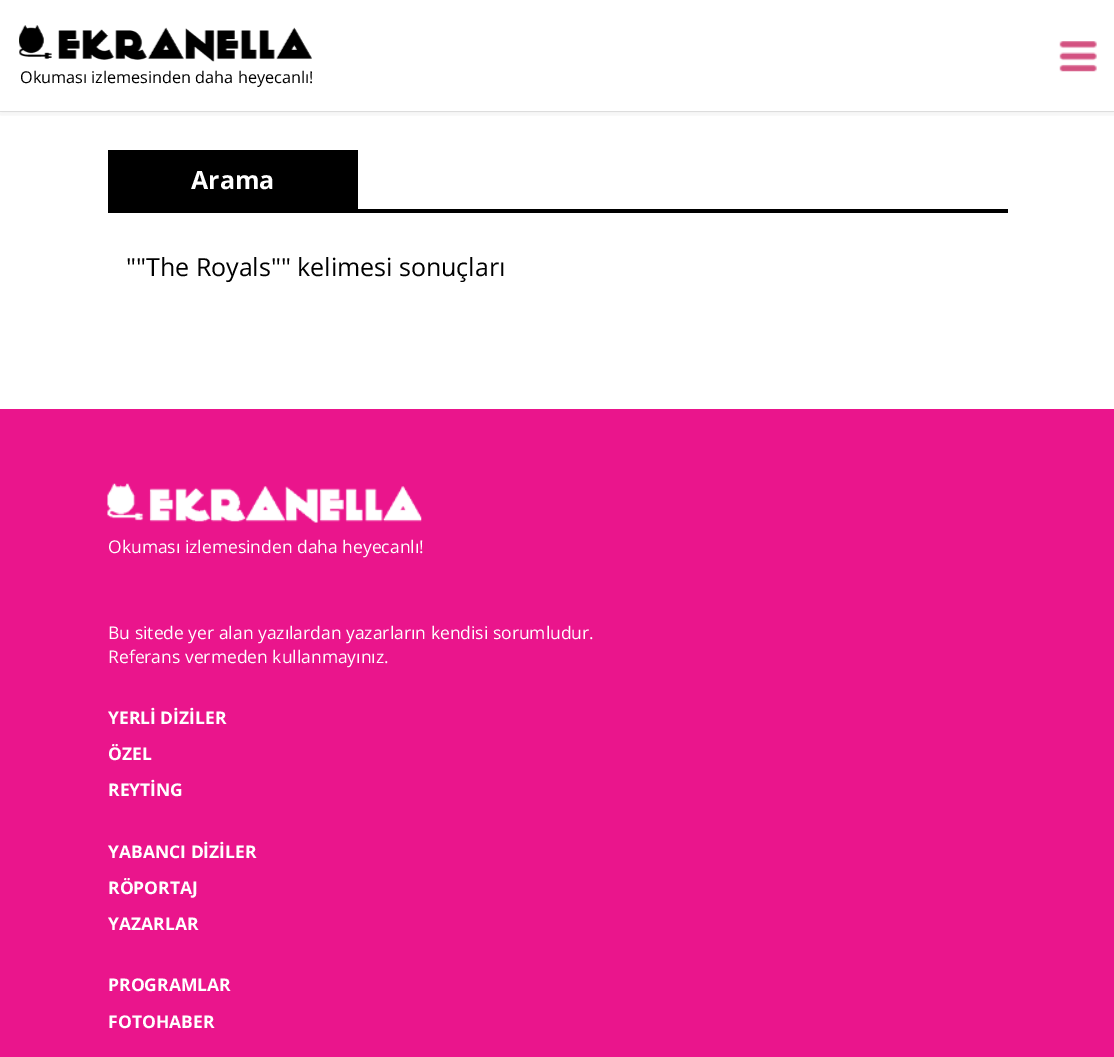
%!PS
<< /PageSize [1114 1057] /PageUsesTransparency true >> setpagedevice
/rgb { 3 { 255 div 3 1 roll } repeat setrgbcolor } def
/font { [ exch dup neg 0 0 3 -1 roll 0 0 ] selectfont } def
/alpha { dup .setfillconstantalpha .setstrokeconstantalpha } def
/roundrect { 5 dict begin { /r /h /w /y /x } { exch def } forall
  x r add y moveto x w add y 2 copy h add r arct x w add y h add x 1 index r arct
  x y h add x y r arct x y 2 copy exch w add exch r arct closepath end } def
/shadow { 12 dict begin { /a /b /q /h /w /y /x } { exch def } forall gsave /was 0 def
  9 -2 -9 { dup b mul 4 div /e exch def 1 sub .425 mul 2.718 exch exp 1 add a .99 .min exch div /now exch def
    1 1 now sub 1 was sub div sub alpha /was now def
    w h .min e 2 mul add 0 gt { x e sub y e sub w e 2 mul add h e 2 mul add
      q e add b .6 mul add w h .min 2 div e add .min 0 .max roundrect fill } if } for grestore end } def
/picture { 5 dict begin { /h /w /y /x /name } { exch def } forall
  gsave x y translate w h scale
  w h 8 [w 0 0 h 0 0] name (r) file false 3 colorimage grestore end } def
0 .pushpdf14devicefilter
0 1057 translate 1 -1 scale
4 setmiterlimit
255 255 255 rgb
0 0 1114 1057 rectfill
233 233 233 rgb
0 111 1114 1 rectfill
gsave
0 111 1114 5 rectclip
0 0 0 rgb
0 0 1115 111 0 6 0.1 shadow
grestore
(img/1.rgb) 19 25 293 37 picture
(img/2.rgb) 1059 41 38 31 picture
[
  [108 209 900 4 0 0 0]
  [108 150 250 59 0 0 0]
  [0 409 1114 648 234 21 140]
] { aload pop rgb rectfill } forall
(img/3.rgb) 107 483 315 40 picture
/OpenSans-Regular 16.25 font
0 0 0 rgb
20 83 moveto (Okuması izlemesinden daha heyecanlı!) show
/OpenSans-Bold 25 font
255 255 255 rgb
191 189 moveto (Arama) show
/OpenSans-Regular 25 font
0 0 0 rgb
126 276 moveto (""The Royals"" kelimesi sonuçları) show
/OpenSans-Regular 17.5 font
255 255 255 rgb
[
  [(Okuması izlemesinden daha heyecanlı!) 108 553]
  [(Bu sitede yer alan yazılardan yazarların kendisi sorumludur.) 108 639]
  [(Referans vermeden kullanmayınız.) 108 663]
] { aload pop moveto show } forall
/OpenSans-Bold 17.5 font
[
  [(YERLİ DİZİLER) 108 724]
  [(ÖZEL) 108 760]
  [(REYTİNG) 108 796]
  [(YABANCI DİZİLER) 108 858]
  [(RÖPORTAJ) 108 894]
  [(YAZARLAR) 108 930]
  [(PROGRAMLAR) 108 991]
  [(FOTOHABER) 108 1028]
] { aload pop moveto show } forall
.poppdf14devicefilter showpage
